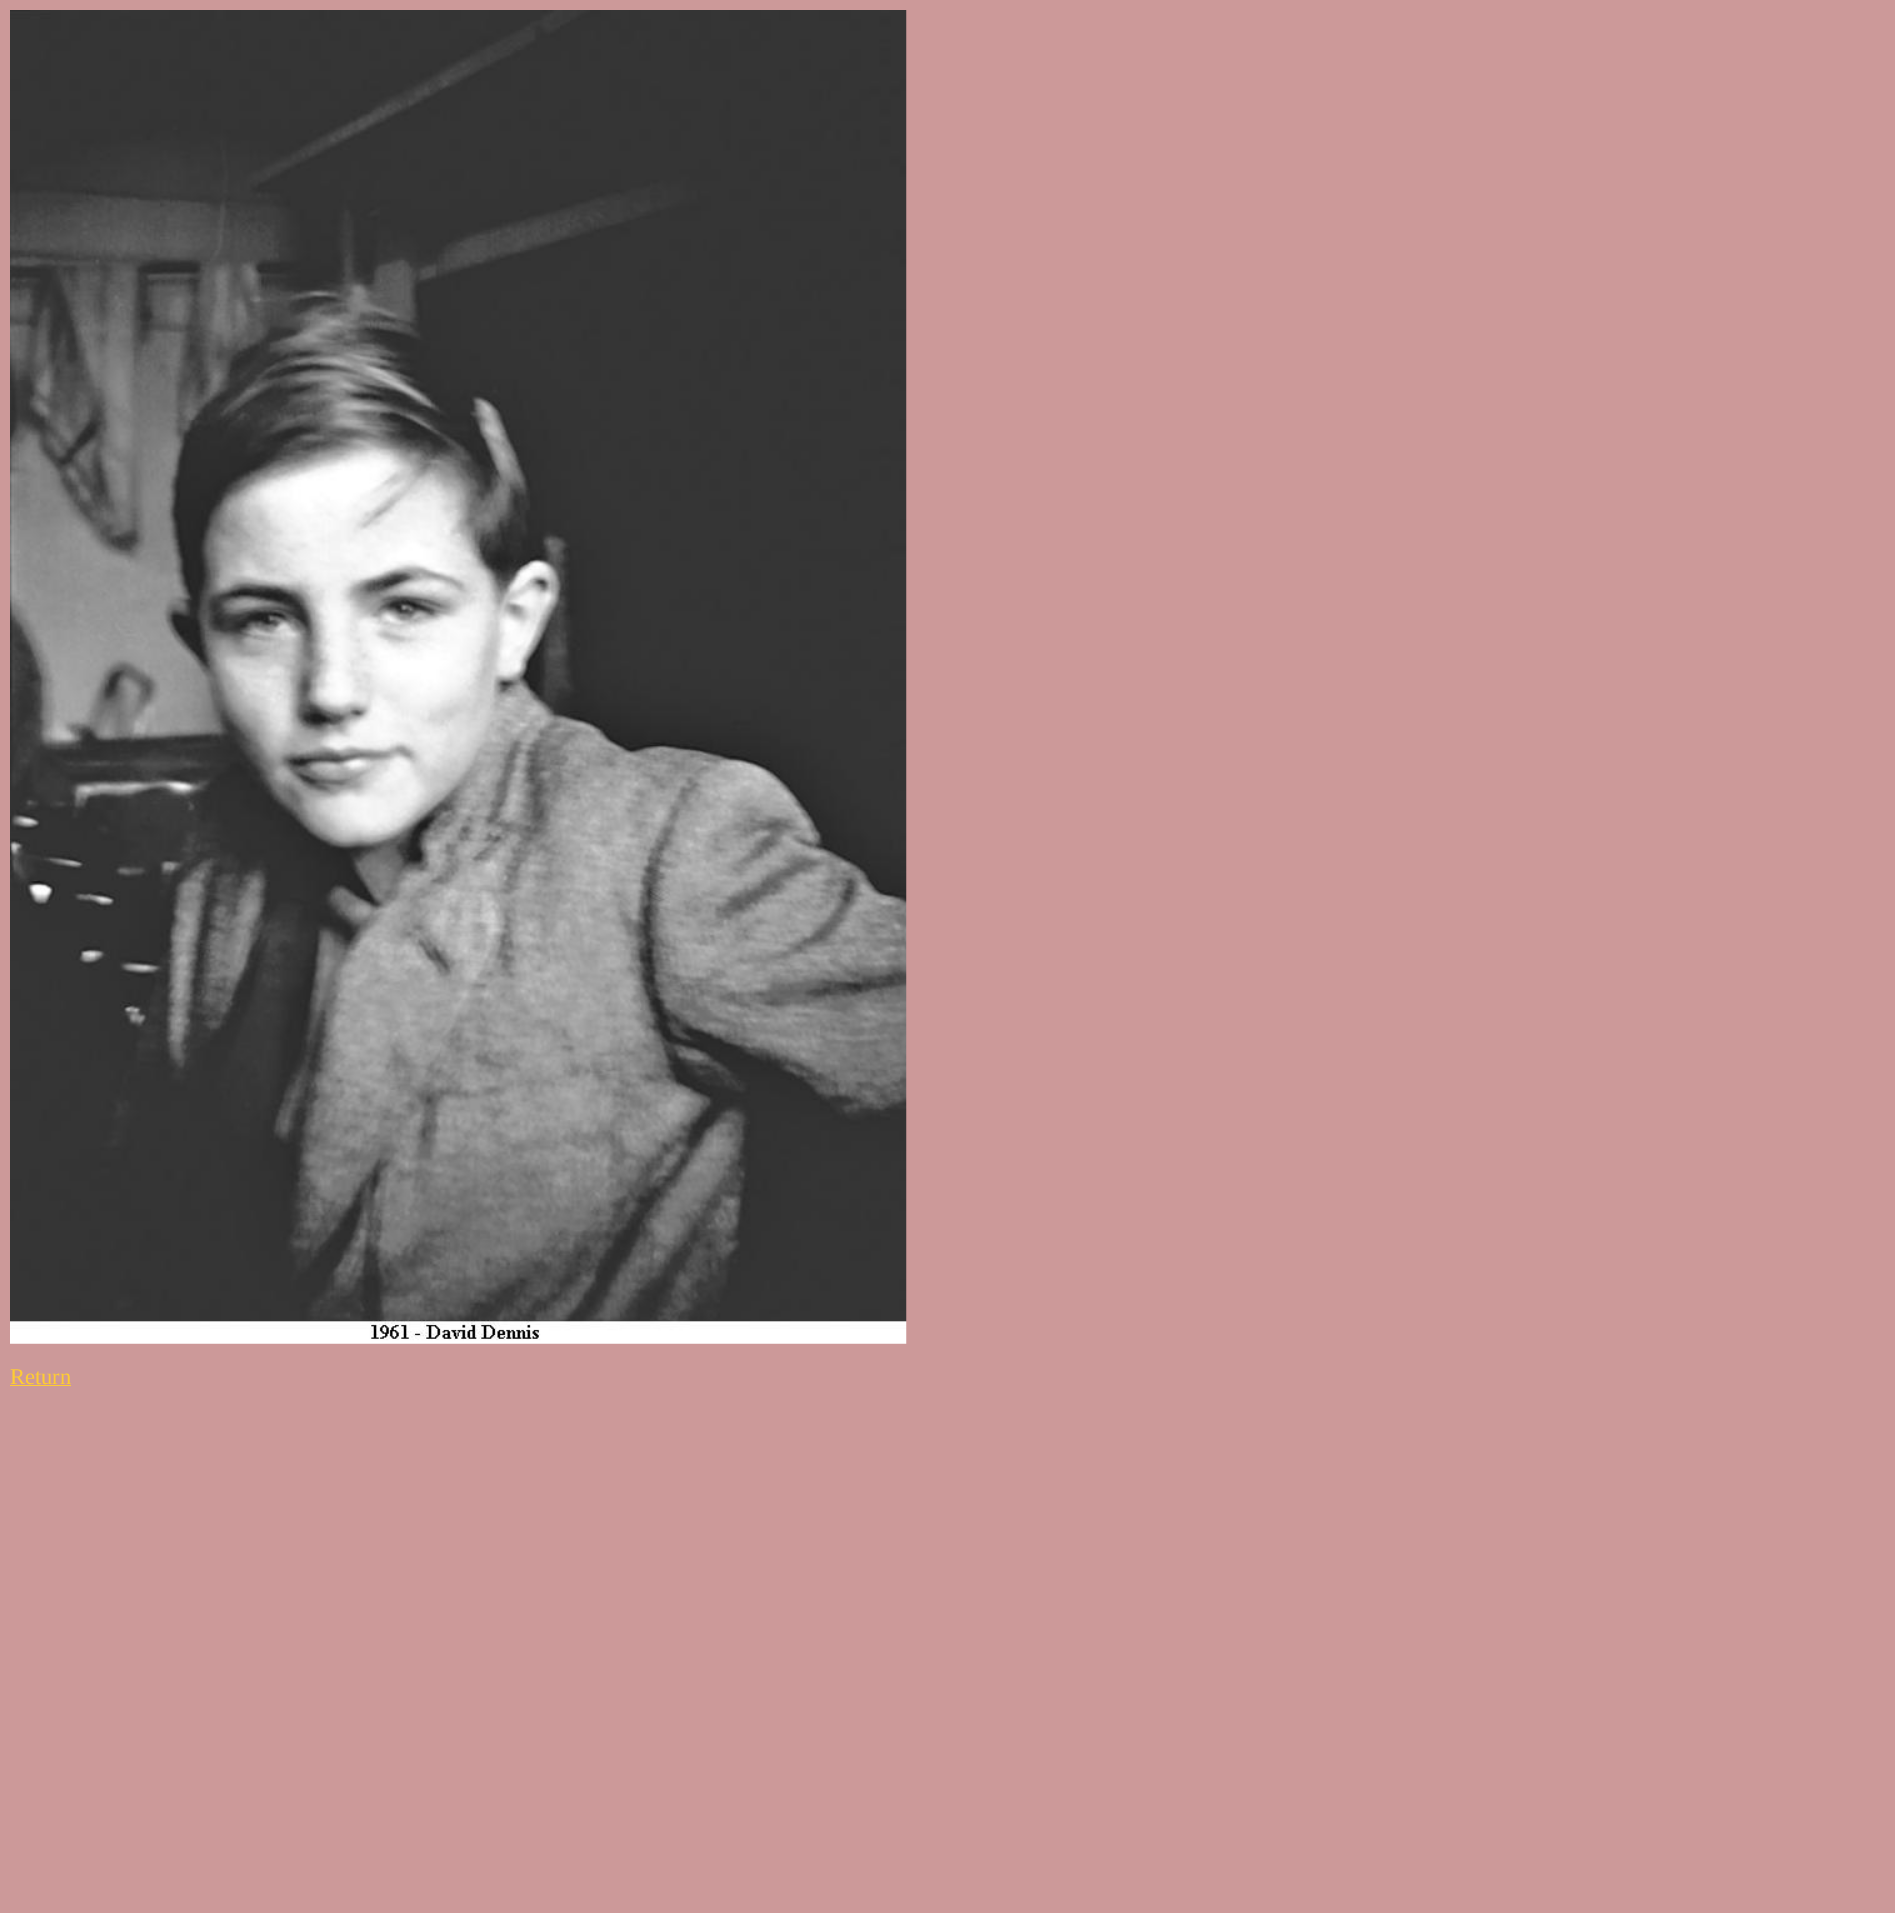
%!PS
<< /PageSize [1895 1913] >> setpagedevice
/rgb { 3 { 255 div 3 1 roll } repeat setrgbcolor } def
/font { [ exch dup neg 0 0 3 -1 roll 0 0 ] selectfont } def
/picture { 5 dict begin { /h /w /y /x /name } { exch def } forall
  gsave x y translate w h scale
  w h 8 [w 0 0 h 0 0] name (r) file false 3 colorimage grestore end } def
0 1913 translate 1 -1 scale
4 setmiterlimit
204 153 153 rgb
0 0 1895 1913 rectfill
(img/1.rgb) 10 10 897 1334 picture
255 204 51 rgb
10 1385 61 1 rectfill
/LiberationSerif-Regular 22.5 font
10 1384 moveto (Return) show
showpage
